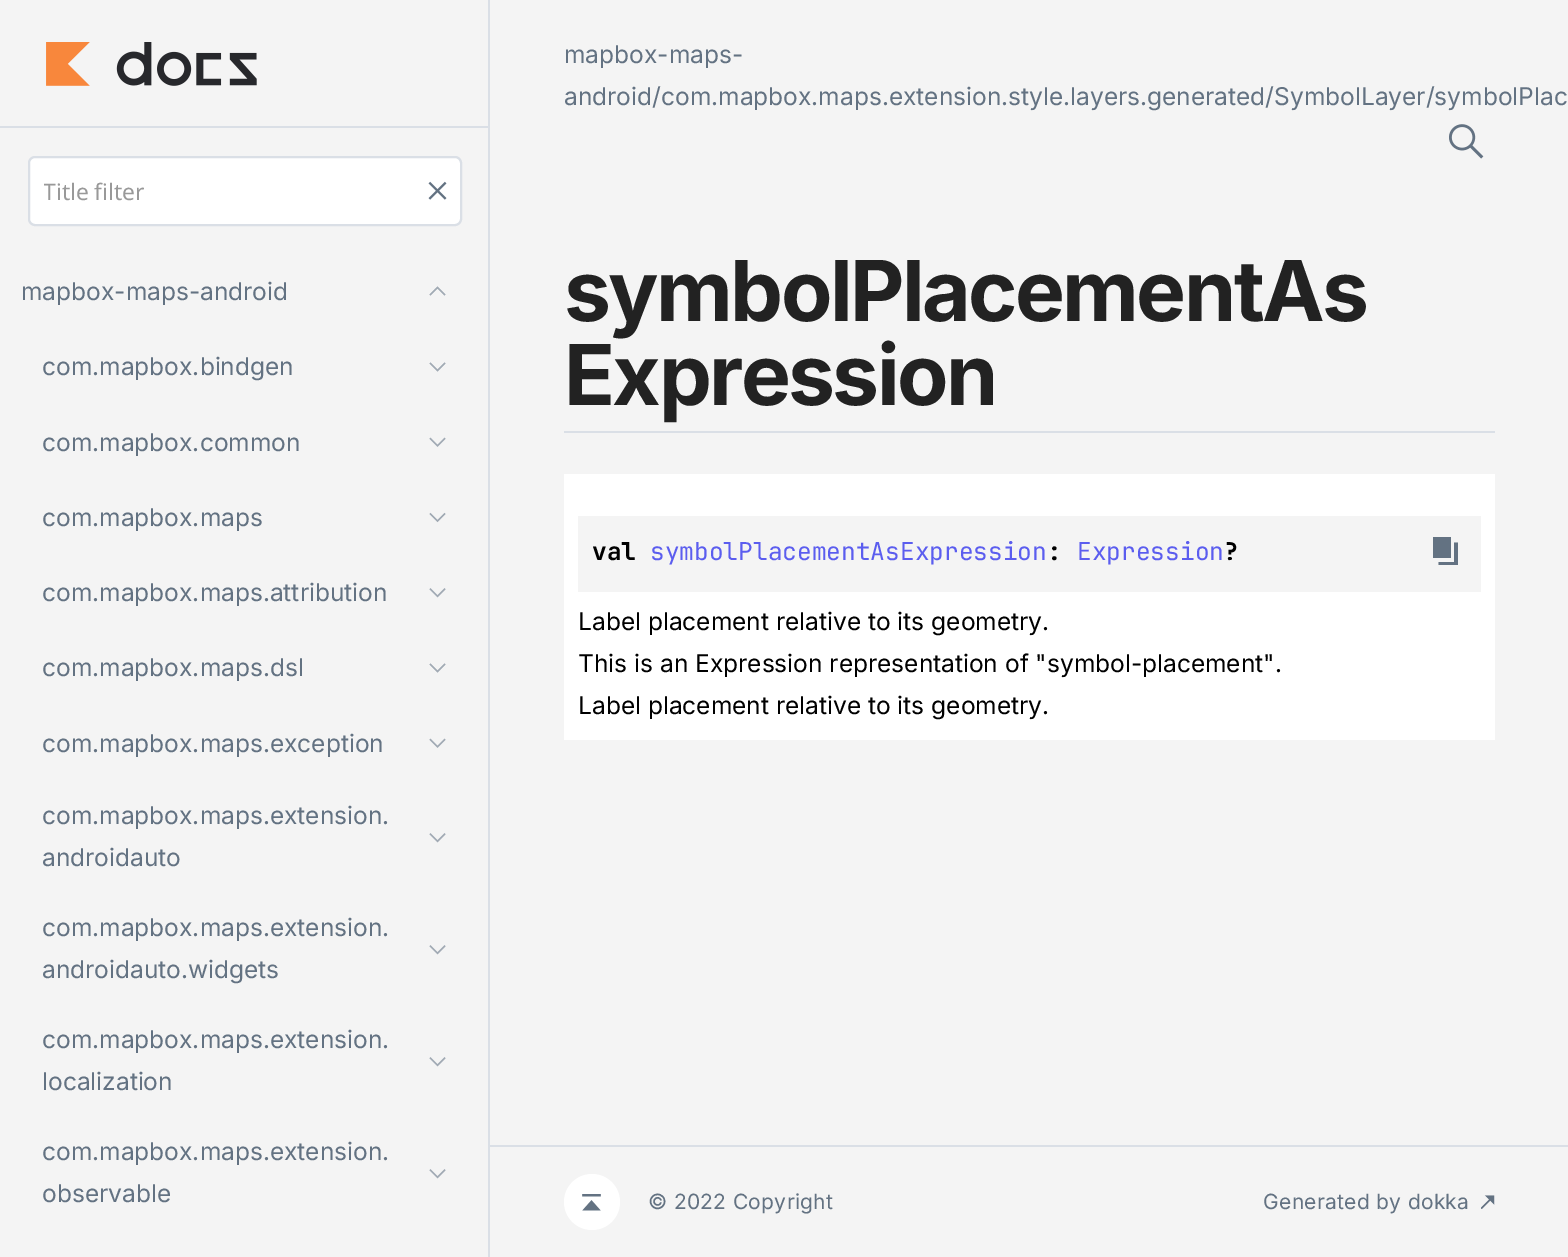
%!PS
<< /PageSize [1568 1257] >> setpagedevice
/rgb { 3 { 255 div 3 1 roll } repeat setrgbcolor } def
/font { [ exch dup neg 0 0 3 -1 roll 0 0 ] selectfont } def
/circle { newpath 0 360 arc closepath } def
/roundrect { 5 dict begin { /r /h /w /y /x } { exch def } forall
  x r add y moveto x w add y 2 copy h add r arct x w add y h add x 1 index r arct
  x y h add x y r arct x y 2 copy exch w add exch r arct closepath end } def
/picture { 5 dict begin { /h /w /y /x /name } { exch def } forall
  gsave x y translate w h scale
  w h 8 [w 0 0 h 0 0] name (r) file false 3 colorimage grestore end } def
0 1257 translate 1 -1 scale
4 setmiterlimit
244 244 244 rgb
0 0 1568 1257 rectfill
218 223 230 rgb
488 0 2 1257 rectfill
(img/1.rgb) 46 42 211 44 picture
0 126 488 2 rectfill
255 255 255 rgb
29 157 432 68 6 roundrect gsave fill grestore
218 223 230 rgb
2 setlinewidth
stroke
(img/2.rgb) 428 181 19 19 picture
(img/3.rgb) 429 286 17 10 picture
(img/4.rgb) 429 362 17 10 picture
(img/5.rgb) 429 437 17 10 picture
(img/6.rgb) 429 512 17 11 picture
(img/7.rgb) 429 588 17 10 picture
(img/4.rgb) 429 663 17 10 picture
(img/5.rgb) 429 738 17 10 picture
(img/7.rgb) 429 833 17 10 picture
(img/7.rgb) 429 945 17 10 picture
(img/7.rgb) 429 1057 17 10 picture
(img/7.rgb) 429 1169 17 10 picture
(img/8.rgb) 1449 124 35 35 picture
[
  [564 431 931 2 218 223 230]
  [564 474 931 266 255 255 255]
  [578 516 903 76 244 244 244]
] { aload pop rgb rectfill } forall
99 114 130 rgb
1433 537 moveto 1451 537 lineto 1451 558 lineto 1433 558 lineto closepath 1454 542.5 moveto 1458 542.5 lineto 1458 565 lineto 1438.5 565 lineto 1438.5 562 lineto 1454 562 lineto closepath eofill
218 223 230 rgb
490 1145 1078 2 rectfill
255 255 255 rgb
592 1202 28 circle fill
(img/9.rgb) 582 1194 19 17 picture
(img/10.rgb) 1481 1195 14 14 picture
gsave
44 175 381 32 rectclip
/NotoSans-Regular 22.75 font
153 153 153 rgb
43 200 moveto (Title filter) show
grestore
/Inter-Regular 24.5 font
99 114 130 rgb
[
  [(mapbox-maps-android) 21 300]
  [(com.mapbox.bindgen) 42 375]
  [(com.mapbox.common) 42 451]
  [(com.mapbox.maps) 42 526]
  [(com.mapbox.maps.attribution) 42 601]
  [(com.mapbox.maps.dsl) 42 676]
  [(com.mapbox.maps.exception) 42 752]
  [(com.mapbox.maps.extension.) 42 824]
  [(androidauto) 42 866]
  [(com.mapbox.maps.extension.) 42 936]
  [(androidauto.widgets) 42 978]
  [(com.mapbox.maps.extension.) 42 1048]
  [(localization) 42 1090]
  [(com.mapbox.maps.extension.) 42 1160]
  [(observable) 42 1202]
  [(mapbox-maps-) 564 63]
  [(android/com.mapbox.maps.extension.style.layers.generated/SymbolLayer/symbolPlac) 564 105]
] { aload pop moveto show } forall
/Inter-Bold 84 font
34 34 34 rgb
564 321 moveto -2.6 0 (symbolPlacementAs) ashow
564 405 moveto -2.6 0 (Expression) ashow
/JetBrainsMono-Bold 24.5 font
0 0 0 rgb
592 560 moveto (val) show
/JetBrainsMono-Regular 24.5 font
91 93 239 rgb
650 560 moveto (symbolPlacementAsExpression) show
/JetBrainsMono-Bold 24.5 font
0 0 0 rgb
1047 560 moveto (:) show
/JetBrainsMono-Regular 24.5 font
91 93 239 rgb
1077 560 moveto (Expression) show
/JetBrainsMono-Bold 24.5 font
0 0 0 rgb
1224 560 moveto (?) show
/Inter-Regular 24.5 font
[
  [(Label placement relative to its geometry.) 578 630]
  [(This is an Expression representation of "symbol-placement".) 578 672]
  [(Label placement relative to its geometry.) 578 714]
] { aload pop moveto show } forall
/Inter-Regular 21 font
99 114 130 rgb
648 1209 moveto 0.3 0 (© 2022 Copyright) ashow
1263 1209 moveto 0.3 0 (Generated by dokka) ashow
showpage
